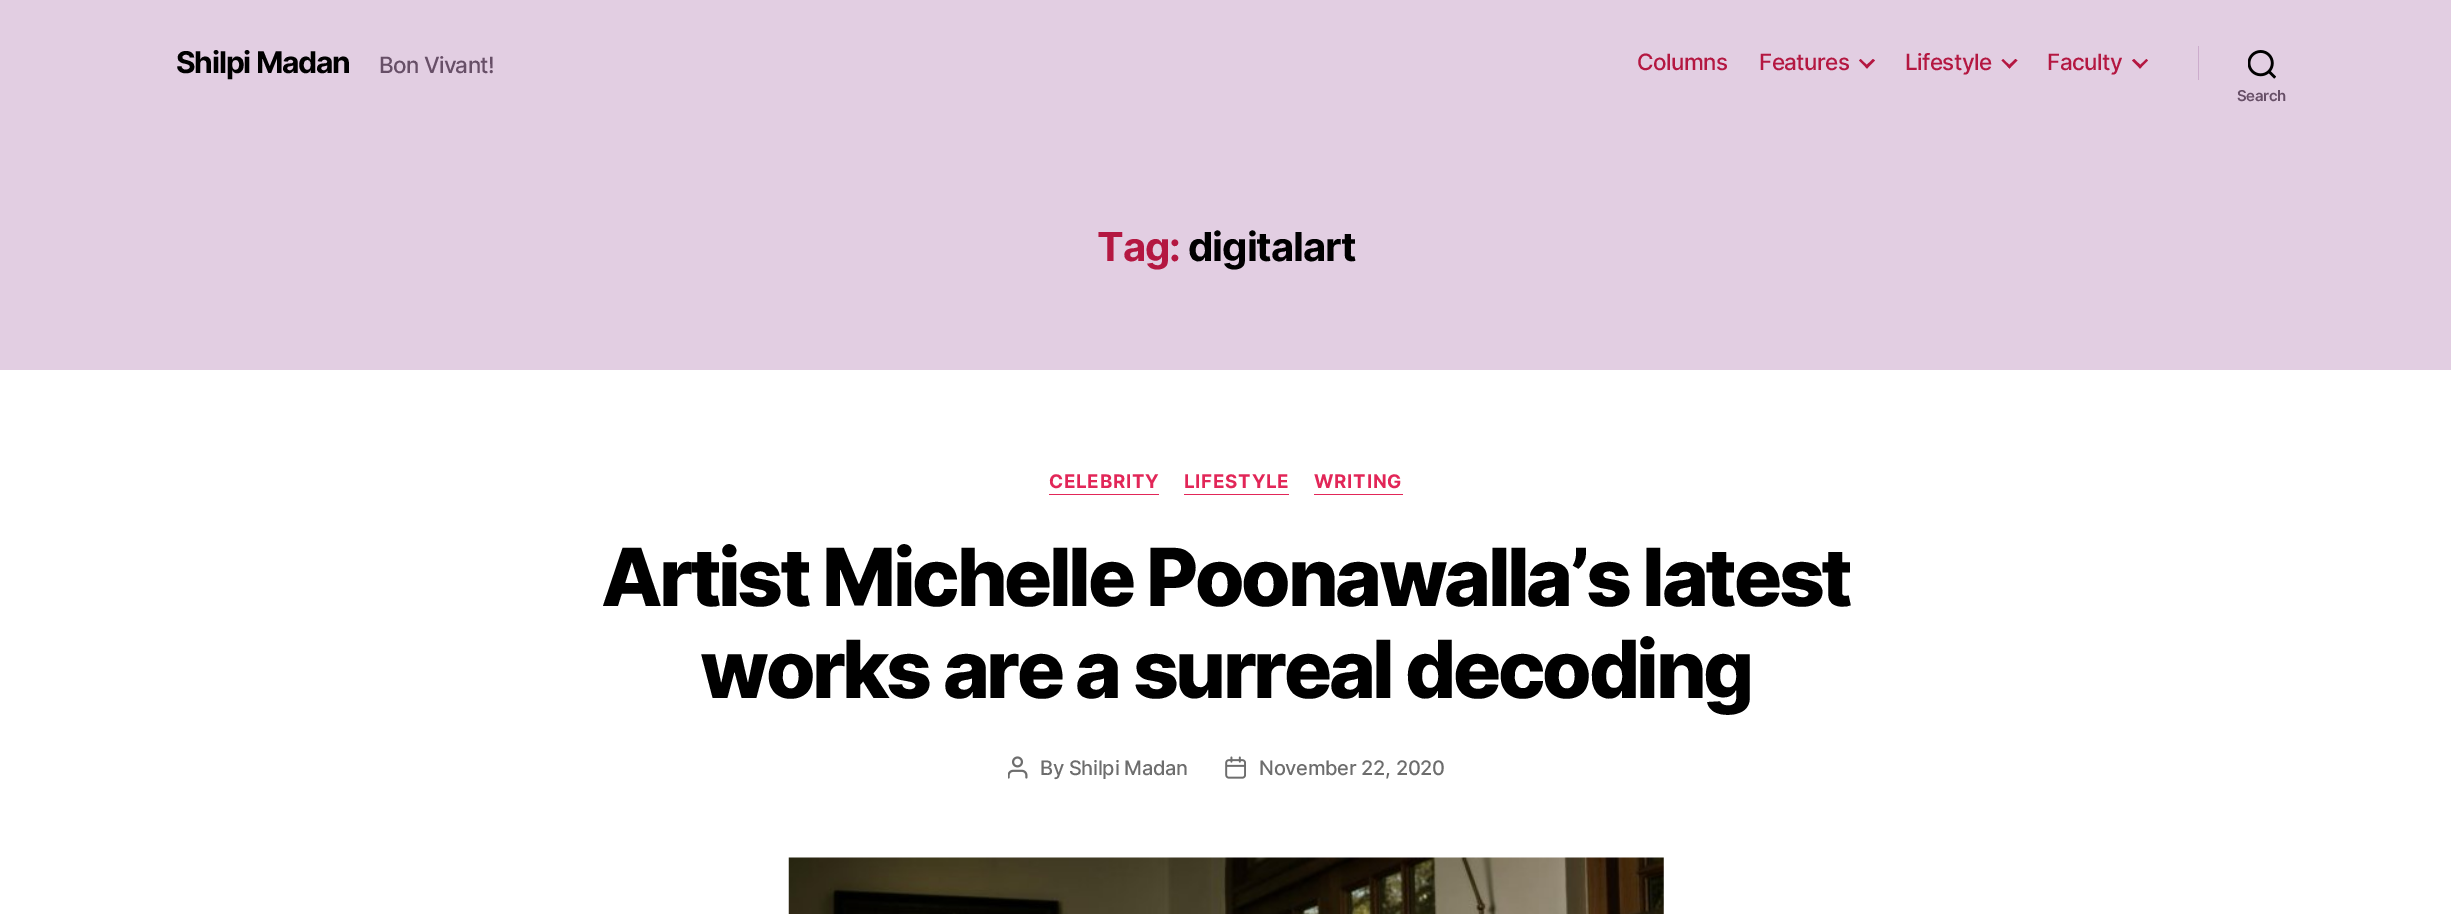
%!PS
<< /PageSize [2451 914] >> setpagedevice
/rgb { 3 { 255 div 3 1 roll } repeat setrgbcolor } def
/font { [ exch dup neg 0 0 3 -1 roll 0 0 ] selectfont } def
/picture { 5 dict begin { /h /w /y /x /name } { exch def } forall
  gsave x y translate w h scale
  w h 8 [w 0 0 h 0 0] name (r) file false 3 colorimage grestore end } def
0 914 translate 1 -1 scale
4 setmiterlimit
255 255 255 rgb
0 0 2451 914 rectfill
226 206 226 rgb
0 0 2451 370 rectfill
180 23 65 rgb
1859 60.5 moveto 1860.5 59 lineto 1868.5 66.5 lineto 1867 68.5 lineto closepath fill
1865 66.5 moveto 1873 59 lineto 1875 60.5 lineto 1867 68.5 lineto closepath fill
2001.5 60.5 moveto 2003 59 lineto 2011 66.5 lineto 2009.5 68.5 lineto closepath fill
2007.5 66.5 moveto 2015.5 59 lineto 2017.5 60.5 lineto 2009.5 68.5 lineto closepath fill
2132 60.5 moveto 2134 59 lineto 2142 66.5 lineto 2140 68.5 lineto closepath fill
2138.5 66.5 moveto 2146.5 59 lineto 2148 60.5 lineto 2140 68.5 lineto closepath fill
204 172 204 rgb
2198 46 1 34 rectfill
(img/1.rgb) 2248 50 28 29 picture
[
  [1049 494 110 1 226 38 88]
  [1184 494 105 1 226 38 88]
  [1314 494 89 1 226 38 88]
] { aload pop rgb rectfill } forall
(img/2.rgb) 1008 756 20 23 picture
(img/3.rgb) 1225 756 21 23 picture
(img/4.rgb) 788 857 876 57 picture
/Inter-Bold 30 font
0 0 0 rgb
176 73 moveto -1.25 0 (Shilpi Madan) ashow
/Inter-Medium 22.5 font
103 79 103 rgb
379 73 moveto -0.75 0 (Bon Vivant!) ashow
180 23 65 rgb
1637 70 moveto -0.6 0 (Columns) ashow
1759 70 moveto -0.6 0 (Features) ashow
1905 70 moveto -0.6 0 (Lifestyle) ashow
2047 70 moveto -0.6 0 (Faculty) ashow
/Inter-SemiBold 15 font
103 79 103 rgb
2237 101 moveto -0.3 0 (Search) ashow
/Inter-Bold 40 font
180 23 65 rgb
1097 261 moveto -1 0 (Tag:) ashow
0 0 0 rgb
1188 261 moveto -1 0 (digitalart) ashow
/Inter-Bold 18.75 font
226 38 88 rgb
1049 488 moveto 0.75 0 (CELEBRITY) ashow
1184 488 moveto 0.75 0 (LIFESTYLE) ashow
1314 488 moveto 0.75 0 (WRITING) ashow
/Inter-ExtraBold 80 font
0 0 0 rgb
601 606 moveto -3.35 0 (Artist Michelle Poonawalla’s latest) ashow
700 698 moveto -3.35 0 (works are a surreal decoding) ashow
/Inter-Medium 20 font
109 109 109 rgb
1040 775 moveto -0.3 0 (By Shilpi Madan) ashow
1259 775 moveto -0.3 0 (November 22, 2020) ashow
showpage
